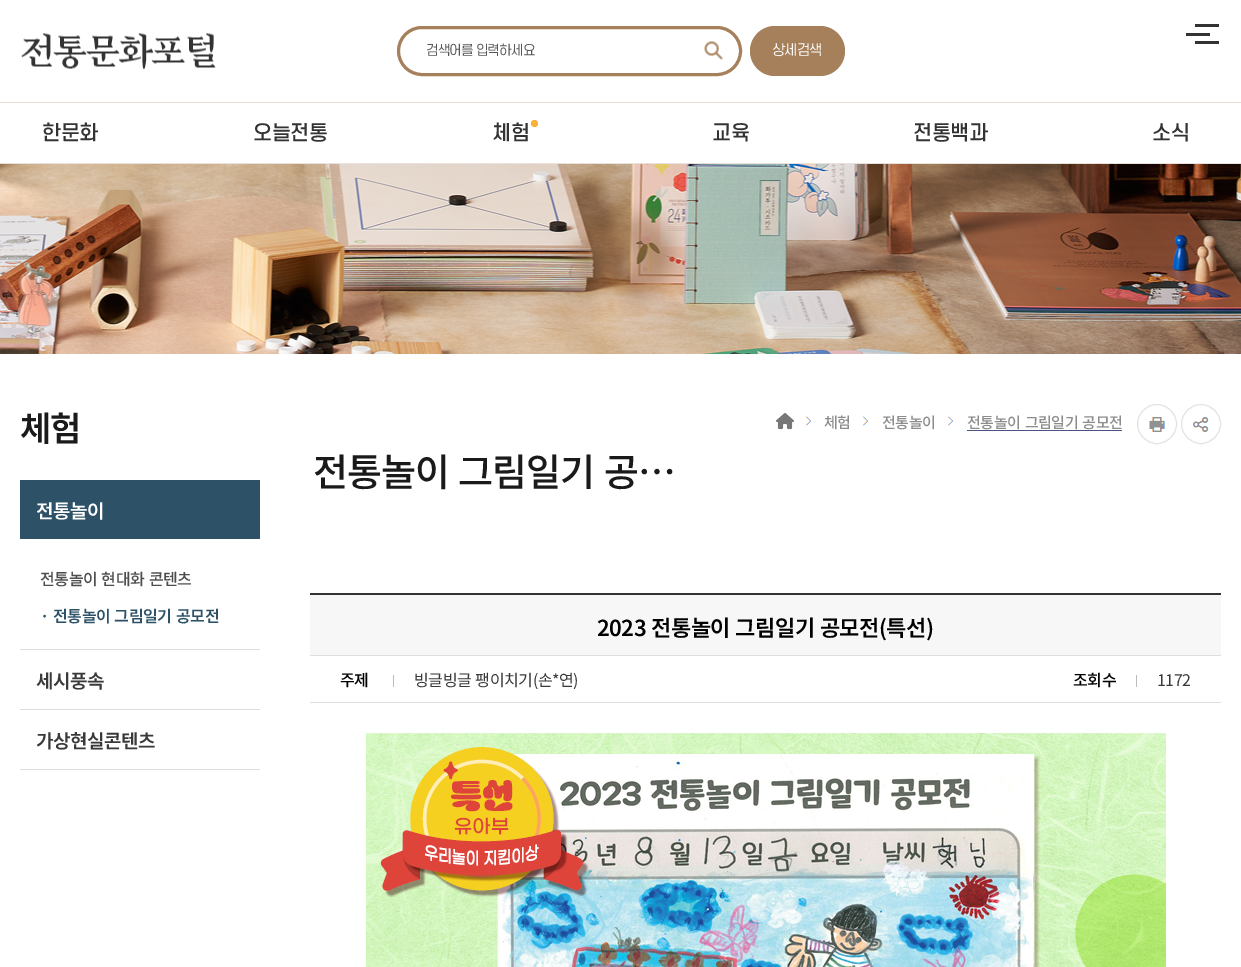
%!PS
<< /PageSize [1241 967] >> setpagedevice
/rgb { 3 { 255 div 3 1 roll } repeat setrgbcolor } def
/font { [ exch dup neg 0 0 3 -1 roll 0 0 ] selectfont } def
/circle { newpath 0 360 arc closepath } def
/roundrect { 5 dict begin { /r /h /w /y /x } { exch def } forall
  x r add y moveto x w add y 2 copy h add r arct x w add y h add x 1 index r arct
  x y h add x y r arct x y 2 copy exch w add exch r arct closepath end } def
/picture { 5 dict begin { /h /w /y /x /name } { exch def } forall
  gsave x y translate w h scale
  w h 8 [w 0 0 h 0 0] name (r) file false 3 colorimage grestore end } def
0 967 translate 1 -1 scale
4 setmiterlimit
255 255 255 rgb
0 0 1241 967 rectfill
(img/1.rgb) 21 33 195 37 picture
166 128 91 rgb
3 setlinewidth
398.5 27.5 342 47 23.5 roundrect stroke
(img/2.rgb) 704 41 19 19 picture
750 26 95 50 25 roundrect fill
[
  [1195 24 24 3 51 51 51]
  [1186 33 24 3 51 51 51]
  [1195 41 24 3 51 51 51]
  [0 102 1241 1 232 225 220]
  [0 163 1241 1 232 225 220]
] { aload pop rgb rectfill } forall
252 175 57 rgb
534.5 123.5 3.5 circle fill
(img/3.rgb) 0 164 1241 190 picture
[
  [20 769 240 1 221 221 221]
  [20 480 240 59 45 82 103]
  [20 649 240 1 221 221 221]
  [20 709 240 1 221 221 221]
] { aload pop rgb rectfill } forall
(img/4.rgb) 776 413 18 17 picture
(img/5.rgb) 805 416 6 10 picture
(img/5.rgb) 862 416 6 10 picture
(img/5.rgb) 947 416 6 10 picture
74 83 127 rgb
967 430 155 1 rectfill
228 228 228 rgb
1 setlinewidth
1157 424 19.5 circle stroke
(img/6.rgb) 1149 417 16 15 picture
1201 424 19.5 circle stroke
(img/7.rgb) 1193 417 16 15 picture
[
  [310 593 911 2 51 51 51]
  [310 702 911 1 222 222 222]
  [310 595 911 60 247 247 247]
  [310 655 911 1 222 222 222]
  [393 675 1 12 188 188 188]
  [1136 675 1 12 188 188 188]
] { aload pop rgb rectfill } forall
(img/8.rgb) 366 733 800 234 picture
/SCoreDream-Regular 13.25 font
87 87 87 rgb
426 55 moveto -1 0 (검색어를 입력하세요) ashow
/SCoreDream-Regular 14 font
255 255 255 rgb
772 55 moveto -1 0 (상세검색) ashow
/SCoreDream-Medium 20 font
51 51 51 rgb
42 140 moveto -0.5 0 (한문화) ashow
253 140 moveto -0.5 0 (오늘전통) ashow
492 140 moveto -0.5 0 (체험) ashow
712 140 moveto -0.5 0 (교육) ashow
913 140 moveto -0.5 0 (전통백과) ashow
1152 140 moveto -0.5 0 (소식) ashow
/NotoSansKR-SemiBold 34 font
26 26 26 rgb
20 441 moveto -1 0 (체험) ashow
/NotoSansKR-SemiBold 19 font
255 255 255 rgb
36 518 moveto -0.5 0 (전통놀이) ashow
/NotoSansKR-Medium 16 font
78 78 78 rgb
40 585 moveto 1 0 32 -0.4 0 (전통놀이 현대화 콘텐츠) awidthshow
/NotoSansKR-SemiBold 16 font
45 82 103 rgb
40 622 moveto -0.4 0 (·) ashow
53 622 moveto 1 0 32 -0.4 0 (전통놀이 그림일기 공모전) awidthshow
/NotoSansKR-SemiBold 19 font
57 57 57 rgb
36 688 moveto -0.5 0 (세시풍속) ashow
36 748 moveto -0.5 0 (가상현실콘텐츠) ashow
/NotoSansKR-Medium 15 font
140 140 140 rgb
824 428 moveto -0.4 0 (체험) ashow
882 428 moveto -0.4 0 (전통놀이) ashow
967 428 moveto 1 0 32 -0.4 0 (전통놀이 그림일기 공모전) awidthshow
/NotoSansKR-Medium 38 font
26 26 26 rgb
313 486 moveto 2 0 32 -1 0 (전통놀이 그림일기 공…) awidthshow
/NotoSansKR-SemiBold 22 font
0 0 0 rgb
597 636 moveto 1 0 32 -0.55 0 (2023 전통놀이 그림일기 공모전\(특선\)) awidthshow
/NotoSansKR-Medium 16 font
340 686 moveto -0.4 0 (주제) ashow
/NotoSansKR-Regular 16 font
57 57 57 rgb
414 686 moveto 1 0 32 -0.4 0 (빙글빙글 팽이치기\(손*연\)) awidthshow
/NotoSansKR-Medium 16 font
0 0 0 rgb
1073 686 moveto -0.4 0 (조회수) ashow
/NotoSansKR-Regular 16 font
57 57 57 rgb
1157 686 moveto -0.4 0 (1172) ashow
showpage
